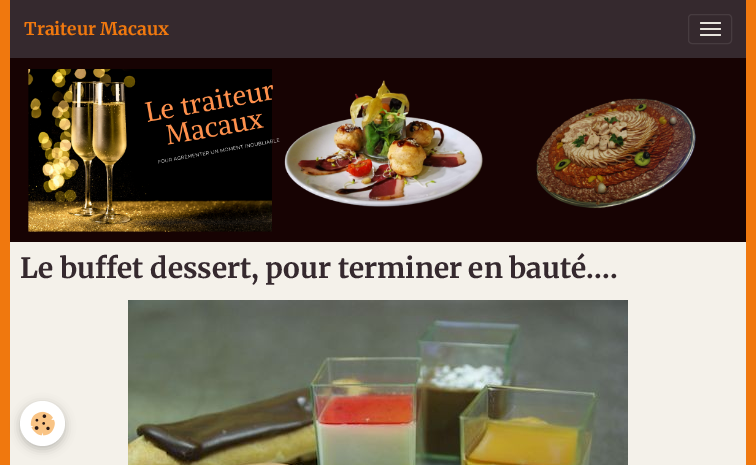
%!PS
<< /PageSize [756 465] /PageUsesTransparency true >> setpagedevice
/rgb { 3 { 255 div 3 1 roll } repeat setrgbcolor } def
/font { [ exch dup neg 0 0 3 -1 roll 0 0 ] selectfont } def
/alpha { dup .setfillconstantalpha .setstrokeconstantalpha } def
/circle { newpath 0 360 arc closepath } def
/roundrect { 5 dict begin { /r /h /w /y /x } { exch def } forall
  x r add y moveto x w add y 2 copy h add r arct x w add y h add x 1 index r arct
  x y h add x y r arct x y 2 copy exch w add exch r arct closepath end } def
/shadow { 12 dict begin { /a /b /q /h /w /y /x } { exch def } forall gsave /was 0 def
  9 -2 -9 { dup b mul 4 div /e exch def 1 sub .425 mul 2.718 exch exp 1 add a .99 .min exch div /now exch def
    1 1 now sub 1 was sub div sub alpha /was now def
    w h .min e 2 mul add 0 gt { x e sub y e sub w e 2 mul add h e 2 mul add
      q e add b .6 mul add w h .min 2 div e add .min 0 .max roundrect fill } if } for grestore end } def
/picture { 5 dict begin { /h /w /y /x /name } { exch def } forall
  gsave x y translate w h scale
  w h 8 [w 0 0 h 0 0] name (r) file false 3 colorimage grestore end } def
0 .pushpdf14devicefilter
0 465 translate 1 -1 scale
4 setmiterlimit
240 120 14 rgb
0 0 756 465 rectfill
53 41 46 rgb
10 0 736 58 rectfill
71 60 64 rgb
688.5 14.5 43 29 3.5 roundrect stroke
232 229 222 rgb
700 22 21 2 1 roundrect fill
700 28 21 2 1 roundrect fill
700 34 21 2 1 roundrect fill
(img/1.rgb) 10 58 736 184 picture
244 241 234 rgb
10 242 736 223 rectfill
(img/2.rgb) 128 300 500 165 picture
0 0 0 rgb
20 404 45 45 22.5 5 0.24 shadow
255 255 255 rgb
42.5 423.5 22.5 circle fill
(img/3.rgb) 30 411 25 25 picture
/Merriweather-Bold 17.5 font
240 120 14 rgb
24 35 moveto (Traiteur Macaux) show
/Merriweather-Bold 28 font
53 41 46 rgb
20 278 moveto (Le buffet dessert, pour terminer en bauté....) show
.poppdf14devicefilter showpage
